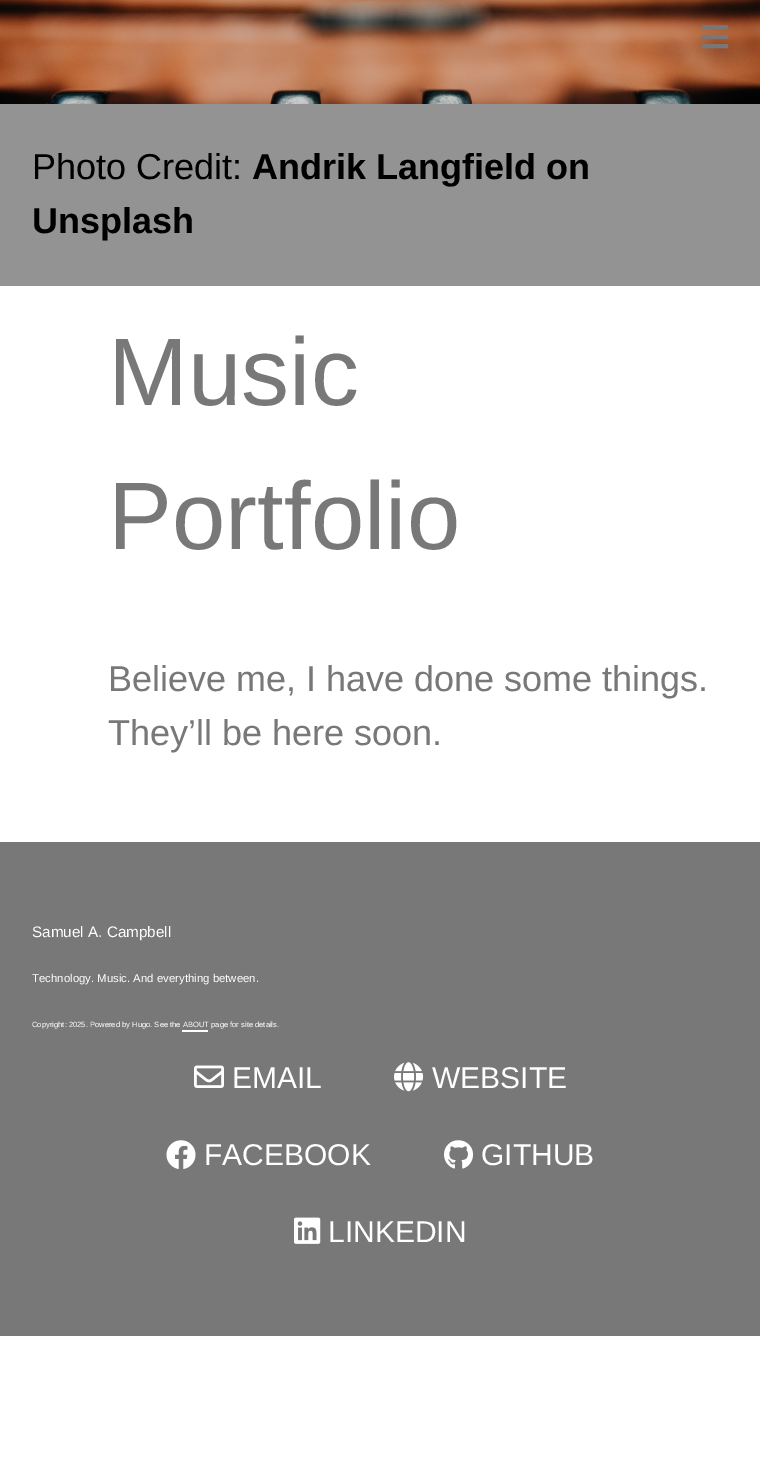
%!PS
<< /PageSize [760 1462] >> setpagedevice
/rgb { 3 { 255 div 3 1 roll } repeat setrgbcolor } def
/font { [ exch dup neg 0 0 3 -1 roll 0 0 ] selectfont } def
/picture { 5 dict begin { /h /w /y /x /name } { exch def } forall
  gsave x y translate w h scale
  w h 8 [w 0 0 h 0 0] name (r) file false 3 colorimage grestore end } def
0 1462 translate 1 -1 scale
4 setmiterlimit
255 255 255 rgb
0 0 760 1462 rectfill
(img/2.rgb) 0 0 760 104 picture
(img/1.rgb) 702 25 27 24 picture
[
  [0 104 760 182 147 147 147]
  [0 842 760 494 120 120 120]
  [182 1030 26 2 255 255 255]
] { aload pop rgb rectfill } forall
(img/3.rgb) 194 1065 30 23 picture
(img/4.rgb) 394 1062 30 30 picture
(img/5.rgb) 166 1140 30 29 picture
(img/6.rgb) 444 1140 30 29 picture
(img/7.rgb) 294 1217 27 27 picture
/LiberationSans-Regular 36 font
0 0 0 rgb
32 179 moveto (Photo Credit:) show
/LiberationSans-Bold 36 font
252 179 moveto (Andrik Langfield on) show
32 233 moveto (Unsplash) show
/LiberationSans-Regular 96 font
120 120 120 rgb
108 405 moveto (Music) show
108 549 moveto (Portfolio) show
/LiberationSans-Regular 36 font
108 691 moveto (Believe me, I have done some things.) show
108 745 moveto (They’ll be here soon.) show
/LiberationSans-Regular 15.25 font
255 255 255 rgb
32 937 moveto (Samuel A. Campbell) show
/LiberationSans-Regular 11.4 font
32 982 moveto (Technology. Music. And everything between.) show
/LiberationSans-Regular 7.6 font
32 1027 moveto (Copyright: 2025. Powered by Hugo. See the ABOUT page for site details.) show
/LiberationSans-Regular 30 font
[
  [(EMAIL) 232 1088]
  [(WEBSITE) 432 1088]
  [(FACEBOOK) 204 1165]
  [(GITHUB) 481 1165]
  [(LINKEDIN) 328 1242]
] { aload pop moveto show } forall
showpage
